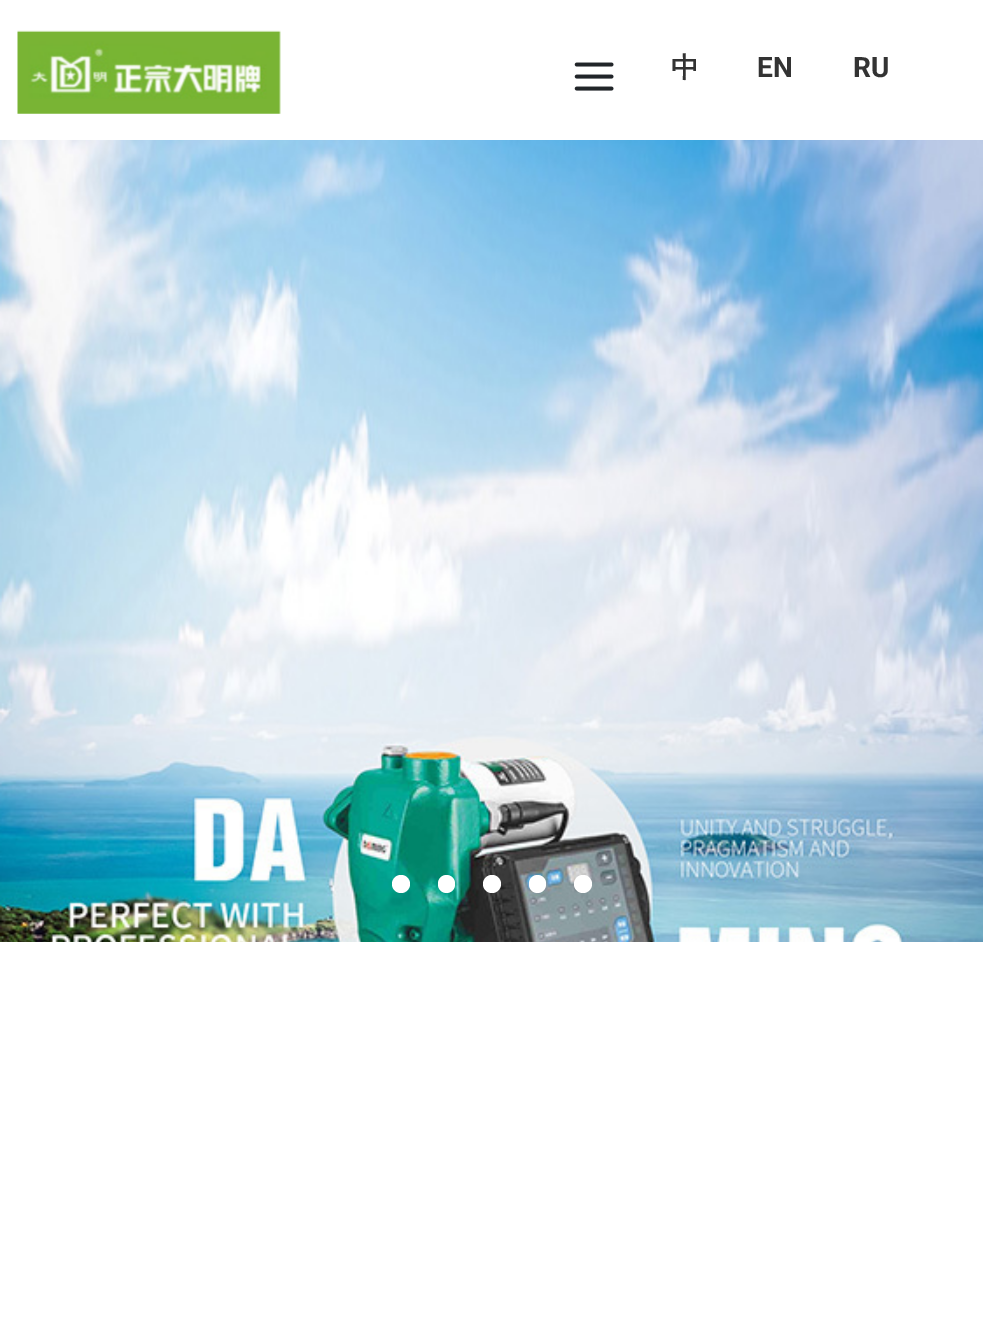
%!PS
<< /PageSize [983 1343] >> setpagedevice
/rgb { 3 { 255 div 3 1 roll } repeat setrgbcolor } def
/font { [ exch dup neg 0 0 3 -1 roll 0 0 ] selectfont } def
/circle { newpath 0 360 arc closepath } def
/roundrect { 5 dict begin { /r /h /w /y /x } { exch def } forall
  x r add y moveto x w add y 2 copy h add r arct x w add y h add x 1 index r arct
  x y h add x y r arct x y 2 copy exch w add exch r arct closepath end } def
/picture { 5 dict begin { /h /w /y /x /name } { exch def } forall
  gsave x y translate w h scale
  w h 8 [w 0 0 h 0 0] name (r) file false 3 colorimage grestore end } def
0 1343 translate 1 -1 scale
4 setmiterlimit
255 255 255 rgb
0 0 983 1343 rectfill
(img/1.rgb) 17 30 264 84 picture
(img/2.rgb) 574 62 40 29 picture
(img/3.rgb) 0 140 983 802 picture
401 884 9 circle fill
438 875 17 18 8.5 roundrect fill
492 884 9 circle fill
529 875 17 18 8.5 roundrect fill
583 884 9 circle fill
/WenQuanYiZenHei-Bold 28 font
51 51 51 rgb
671 77 moveto (中) show
/Roboto-Bold 28 font
757 77 moveto (EN) show
853 77 moveto (RU) show
showpage
